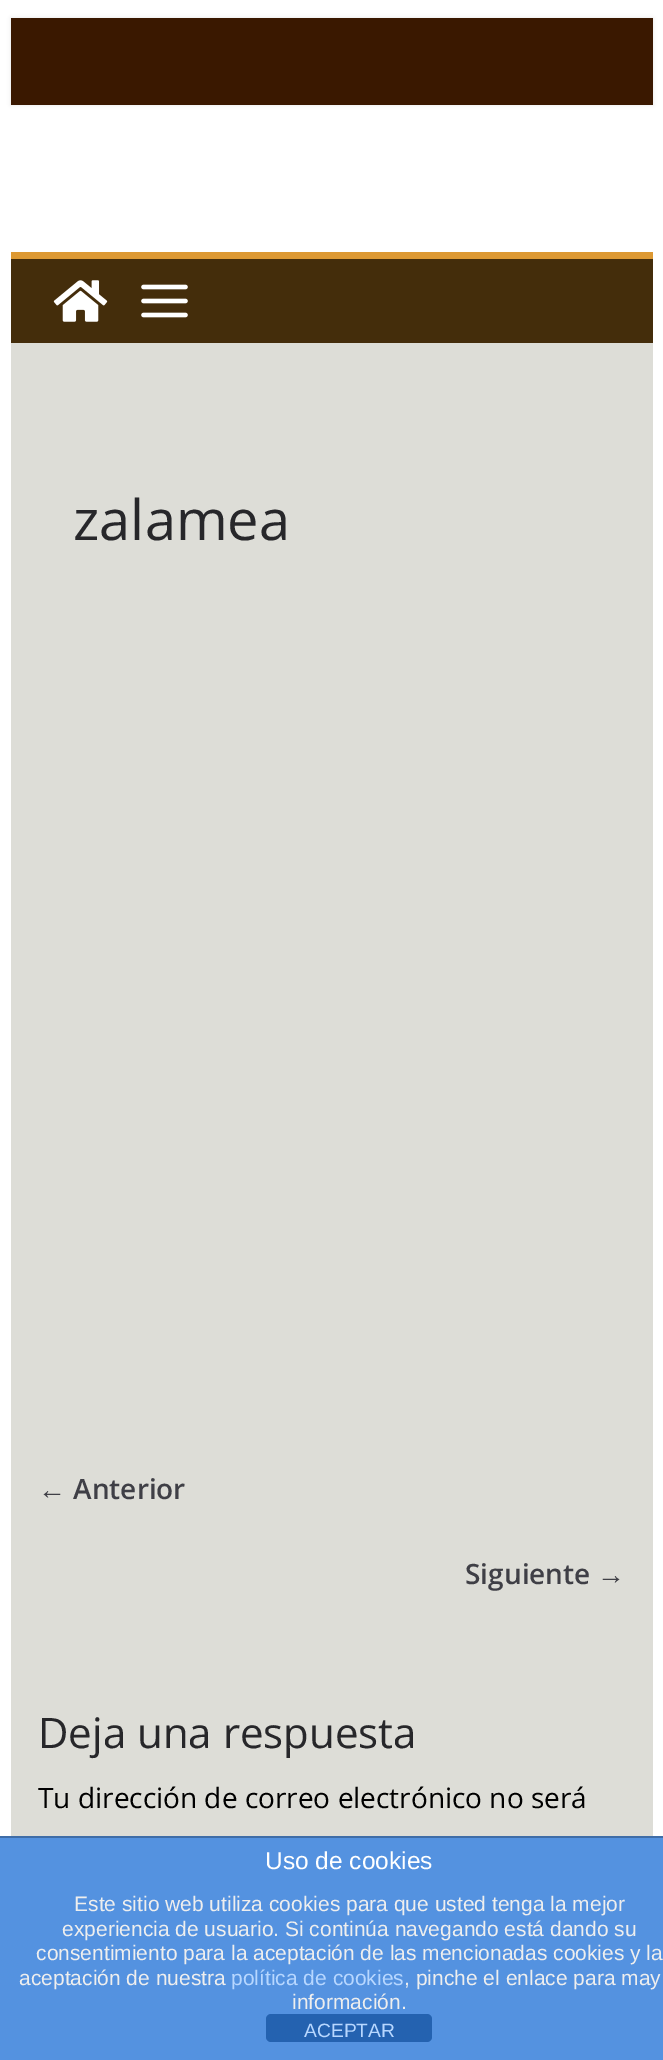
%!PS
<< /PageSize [663 2060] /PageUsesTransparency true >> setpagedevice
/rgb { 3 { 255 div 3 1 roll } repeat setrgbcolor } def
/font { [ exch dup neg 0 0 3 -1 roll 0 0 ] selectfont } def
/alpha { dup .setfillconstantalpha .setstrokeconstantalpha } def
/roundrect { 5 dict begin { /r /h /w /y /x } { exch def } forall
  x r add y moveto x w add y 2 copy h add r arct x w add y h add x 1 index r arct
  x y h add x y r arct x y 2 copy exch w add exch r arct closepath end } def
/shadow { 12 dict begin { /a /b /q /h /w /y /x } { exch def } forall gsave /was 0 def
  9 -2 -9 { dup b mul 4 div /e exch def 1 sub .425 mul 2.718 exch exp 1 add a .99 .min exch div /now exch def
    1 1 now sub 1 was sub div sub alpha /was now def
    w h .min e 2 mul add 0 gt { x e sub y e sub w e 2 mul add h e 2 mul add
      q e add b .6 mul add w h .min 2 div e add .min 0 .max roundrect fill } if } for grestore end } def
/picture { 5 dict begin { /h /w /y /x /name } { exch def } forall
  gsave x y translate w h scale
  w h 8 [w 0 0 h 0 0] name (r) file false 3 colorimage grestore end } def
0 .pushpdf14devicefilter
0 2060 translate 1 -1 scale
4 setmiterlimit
255 255 255 rgb
0 0 663 2060 rectfill
0 0 0 rgb
11 18 642 87 0 2 0.1 shadow
[
  [11 18 642 87 58 24 0]
  [11 259 642 84 68 45 11]
  [11 252 642 7 221 153 51]
] { aload pop rgb rectfill } forall
(img/1.rgb) 53 280 55 42 picture
(img/2.rgb) 141 284 47 34 picture
[
  [11 343 642 1493 221 221 215]
  [0 1838 663 222 84 146 224]
  [0 1836 663 2 63 109 167]
] { aload pop rgb rectfill } forall
36 98 176 rgb
266 2014 166 28 5 roundrect fill
/OpenSans-Regular 56 font
39 39 42 rgb
73 540 moveto (zalamea) show
/LiberationSerif-Bold 28 font
63 63 70 rgb
38 1499 moveto (←) show
/OpenSans-SemiBold 28 font
73 1499 moveto (Anterior) show
465 1584 moveto (Siguiente) show
/LiberationSerif-Bold 28 font
597 1584 moveto (→) show
/OpenSans-Regular 42 font
39 39 42 rgb
38 1748 moveto (Deja una respuesta) show
/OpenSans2-Regular 28 font
0 0 0 rgb
38 1808 moveto (Tu dirección de correo electrónico no será) show
/LiberationSans-Regular 24.5 font
255 255 255 rgb
265 1869 moveto (Uso de cookies) show
/LiberationSans-Regular 21 font
238 238 238 rgb
[
  [(Este sitio web utiliza cookies para que usted tenga la mejor) 74 1911]
  [(experiencia de usuario. Si continúa navegando está dando su) 62 1936]
  [(consentimiento para la aceptación de las mencionadas cookies y la) 36 1960]
  [(aceptación de nuestra) 19 1985]
] { aload pop moveto show } forall
183 215 255 rgb
231 1985 moveto (política de cookies) show
238 238 238 rgb
404 1985 moveto (, pinche el enlace para may) show
292 2009 moveto (información.) show
/LiberationSans-Regular 19.25 font
183 215 255 rgb
304 2037 moveto (ACEPTAR) show
.poppdf14devicefilter showpage
